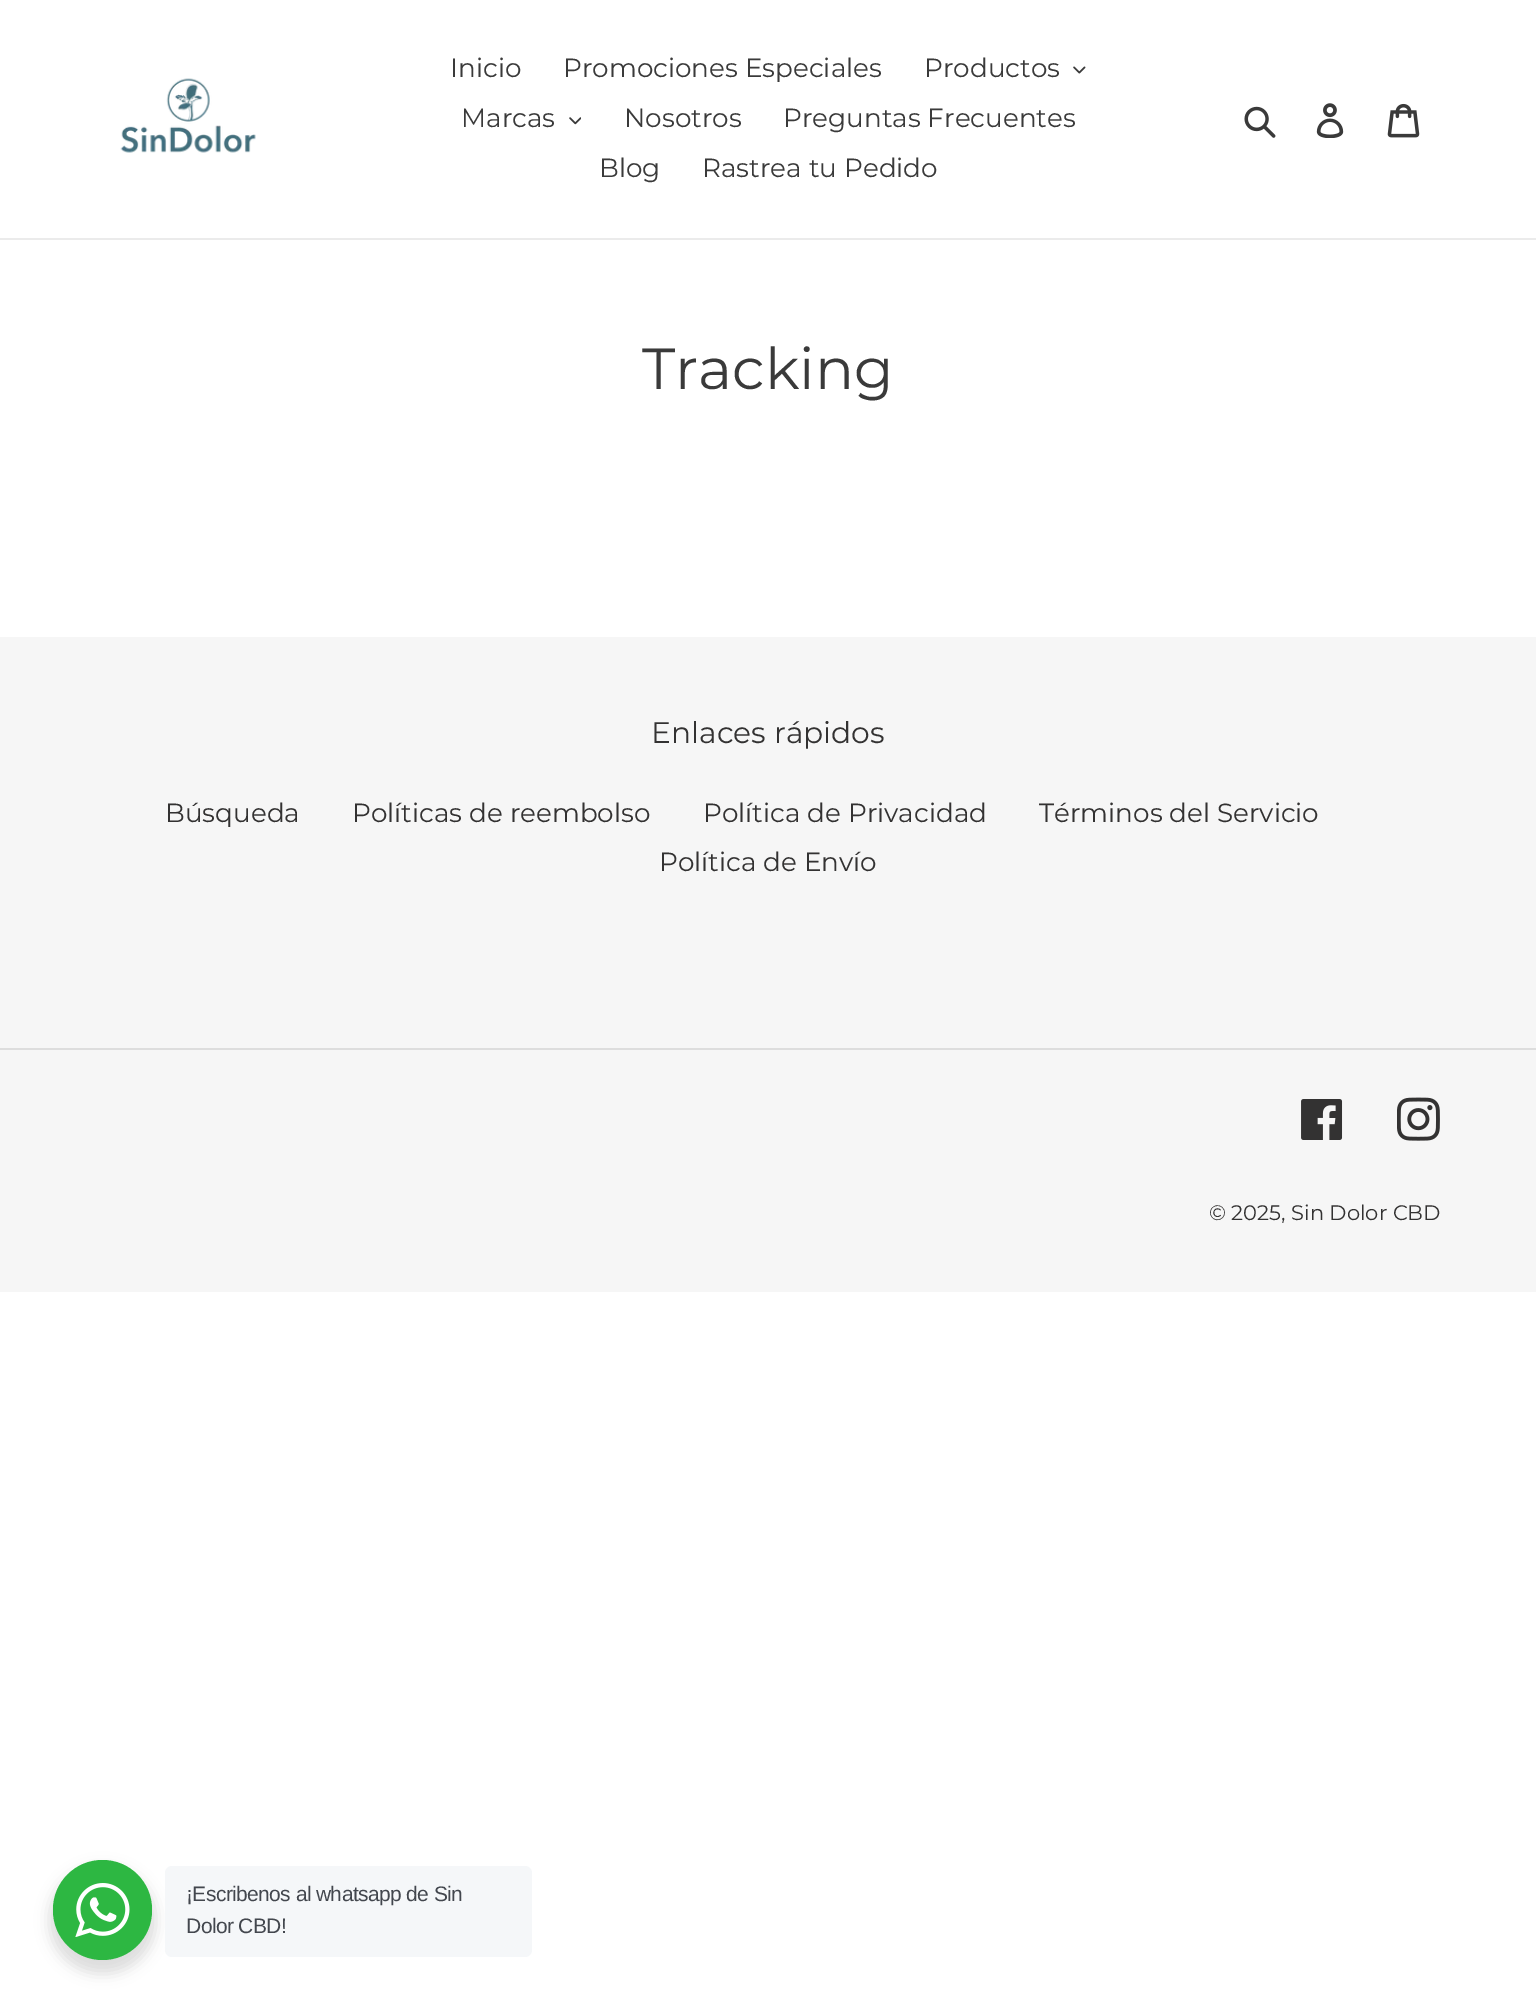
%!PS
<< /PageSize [1536 2011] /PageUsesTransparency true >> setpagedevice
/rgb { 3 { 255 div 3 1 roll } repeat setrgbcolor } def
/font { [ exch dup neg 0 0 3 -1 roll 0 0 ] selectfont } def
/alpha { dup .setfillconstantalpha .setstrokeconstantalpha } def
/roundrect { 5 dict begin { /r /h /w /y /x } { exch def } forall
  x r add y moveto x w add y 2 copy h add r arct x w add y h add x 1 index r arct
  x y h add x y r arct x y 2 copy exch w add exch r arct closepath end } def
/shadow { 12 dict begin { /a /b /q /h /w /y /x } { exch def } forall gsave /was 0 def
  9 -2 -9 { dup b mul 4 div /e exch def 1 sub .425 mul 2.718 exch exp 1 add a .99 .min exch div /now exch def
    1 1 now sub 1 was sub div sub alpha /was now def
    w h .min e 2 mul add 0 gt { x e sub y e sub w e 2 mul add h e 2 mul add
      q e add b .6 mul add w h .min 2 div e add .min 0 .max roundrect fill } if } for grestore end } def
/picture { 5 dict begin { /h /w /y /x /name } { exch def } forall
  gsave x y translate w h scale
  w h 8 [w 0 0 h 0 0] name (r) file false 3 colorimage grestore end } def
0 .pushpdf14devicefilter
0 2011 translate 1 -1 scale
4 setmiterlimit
255 255 255 rgb
0 0 1536 2011 rectfill
235 235 235 rgb
0 238 1536 2 rectfill
(img/1.rgb) 120 78 136 75 picture
(img/2.rgb) 1073 66 13 8 picture
(img/3.rgb) 569 117 12 8 picture
(img/4.rgb) 1244 106 32 32 picture
(img/5.rgb) 1316 103 28 35 picture
(img/6.rgb) 1387 103 33 35 picture
246 246 246 rgb
0 637 1536 655 rectfill
221 221 221 rgb
0 1048 1536 2 rectfill
(img/7.rgb) 1301 1099 42 41 picture
(img/8.rgb) 1397 1097 43 44 picture
0 0 0 rgb
49 1867 107 107 53.5 7 0.14 shadow
45 183 66 rgb
53 1860 99 100 49.5 roundrect fill
(img/9.rgb) 75 1883 55 54 picture
245 247 249 rgb
165 1866 367 91 7 roundrect fill
/Montserrat-Regular 26.25 font
58 58 58 rgb
[
  [(Inicio) 450 77]
  [(Promociones Especiales) 563 77]
  [(Productos) 924 77]
  [(Marcas) 461 127]
  [(Nosotros) 624 127]
  [(Preguntas Frecuentes) 783 127]
  [(Blog) 599 177]
  [(Rastrea tu Pedido) 702 177]
] { aload pop moveto show } forall
/Montserrat-Regular 57.75 font
642 389 moveto (Tracking) show
/Montserrat-Regular 29.75 font
51 50 50 rgb
651 743 moveto (Enlaces rápidos) show
/Montserrat-Regular 26.25 font
[
  [(Búsqueda) 165 822]
  [(Políticas de reembolso) 352 822]
  [(Política de Privacidad) 703 822]
  [(Términos del Servicio) 1039 822]
  [(Política de Envío) 659 871]
] { aload pop moveto show } forall
/Montserrat-Regular 21 font
1209 1220 moveto (© 2025, Sin Dolor CBD) show
/LiberationSans-Regular 21 font
67 71 78 rgb
186 1901 moveto -0.6 0 (¡Escribenos al whatsapp de Sin) ashow
186 1933 moveto -0.6 0 (Dolor CBD!) ashow
.poppdf14devicefilter showpage
